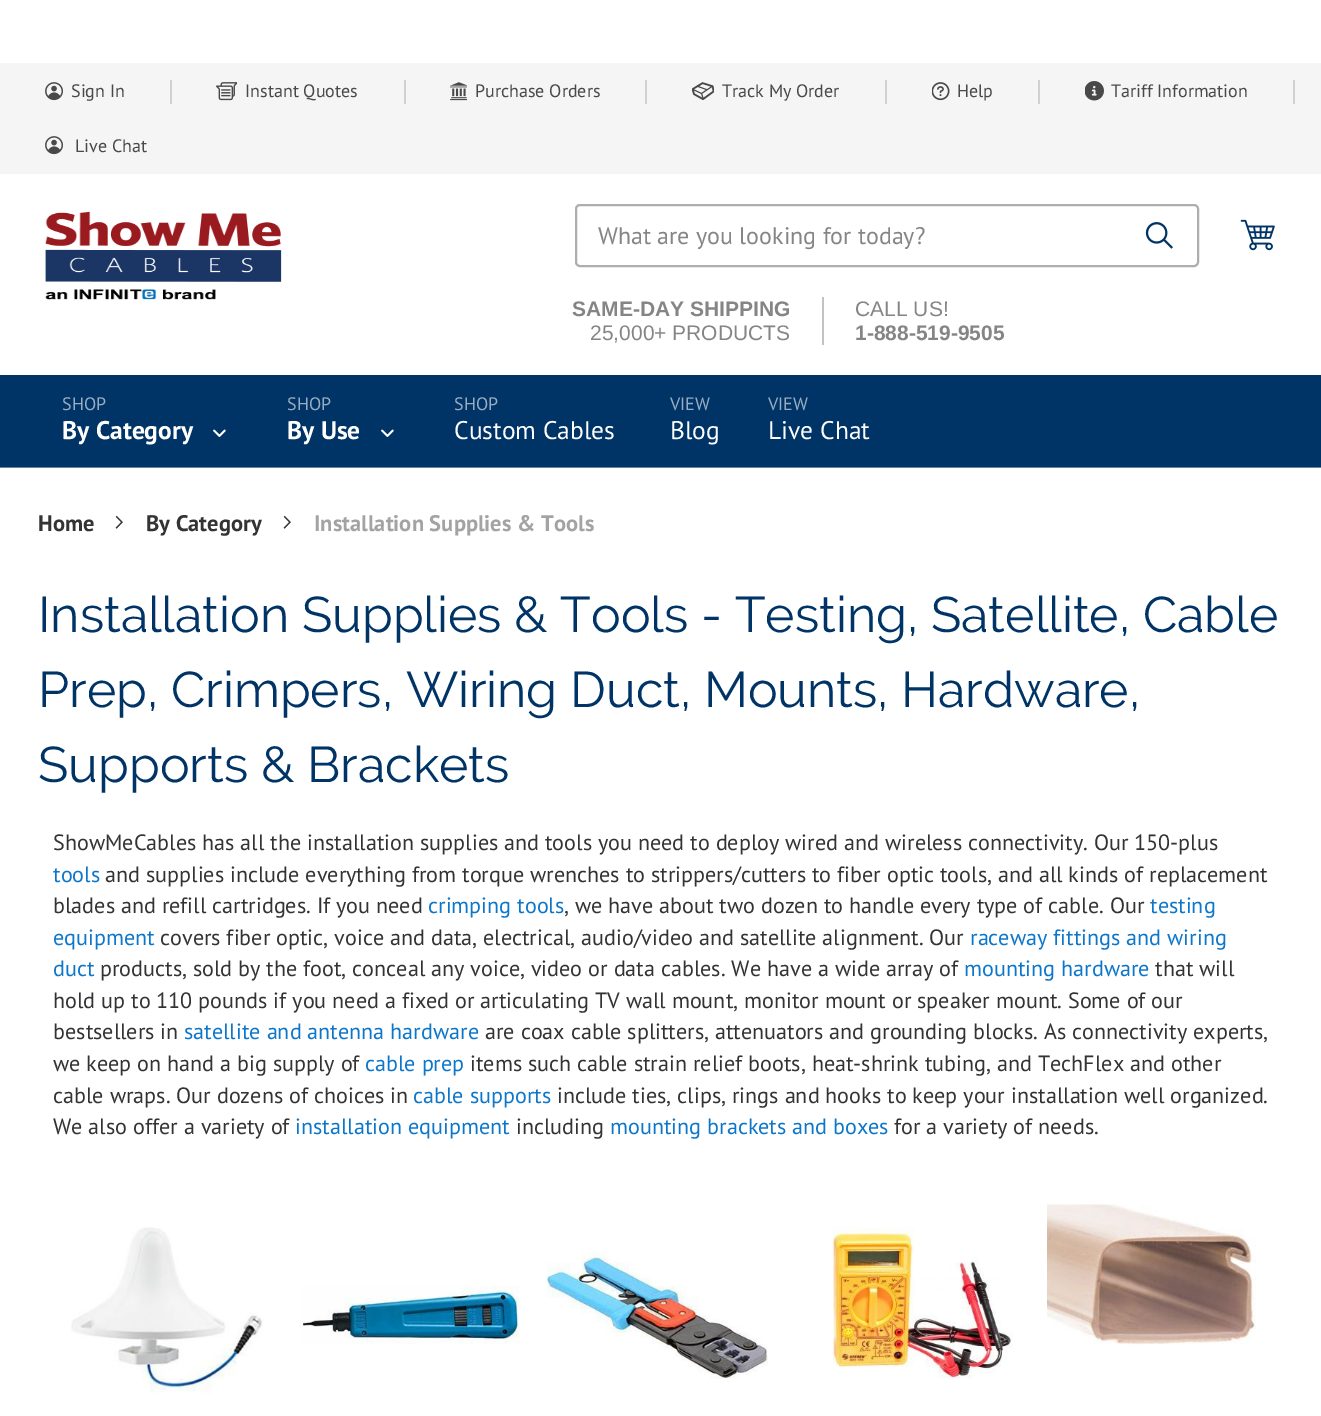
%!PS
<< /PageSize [1321 1416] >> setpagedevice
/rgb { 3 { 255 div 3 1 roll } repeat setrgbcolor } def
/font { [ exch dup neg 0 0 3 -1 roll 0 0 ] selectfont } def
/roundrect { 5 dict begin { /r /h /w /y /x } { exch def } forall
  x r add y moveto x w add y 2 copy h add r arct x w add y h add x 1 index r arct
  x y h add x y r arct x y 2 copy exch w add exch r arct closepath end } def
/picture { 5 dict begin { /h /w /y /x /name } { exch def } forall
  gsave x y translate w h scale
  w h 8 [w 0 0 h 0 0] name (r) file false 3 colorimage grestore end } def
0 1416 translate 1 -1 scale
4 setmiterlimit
255 255 255 rgb
0 0 1321 1416 rectfill
245 245 245 rgb
0 63 1321 111 rectfill
209 209 209 rgb
170 80 2 24 rectfill
(img/1.rgb) 45 82 18 19 picture
404 80 2 24 rectfill
(img/2.rgb) 216 82 21 19 picture
645 80 2 24 rectfill
(img/3.rgb) 450 82 17 19 picture
885 80 2 24 rectfill
(img/4.rgb) 692 82 22 18 picture
1038 80 2 24 rectfill
(img/5.rgb) 932 82 18 19 picture
1293 80 2 24 rectfill
(img/6.rgb) 1085 81 19 20 picture
(img/1.rgb) 45 136 18 19 picture
(img/7.rgb) 45 211 237 89 picture
174 174 174 rgb
2 setlinewidth
576 205 622 61 4 roundrect stroke
(img/8.rgb) 1145 222 28 27 picture
(img/9.rgb) 1240 219 35 32 picture
[
  [822 297 2 48 194 194 194]
  [0 375 1321 92 0 51 102]
  [0 467 1321 1 102 133 163]
] { aload pop rgb rectfill } forall
(img/10.rgb) 213 429 13 8 picture
(img/10.rgb) 381 429 13 8 picture
(img/11.rgb) 115 515 8 14 picture
(img/11.rgb) 283 515 8 14 picture
(img/12.rgb) 71 1227 192 169 picture
(img/13.rgb) 300 1285 220 59 picture
(img/14.rgb) 547 1251 221 128 picture
(img/15.rgb) 832 1227 181 152 picture
(img/16.rgb) 1047 1204 209 141 picture
/PTSans-Regular 18 font
73 73 73 rgb
[
  [(Sign In) 71 97]
  [(Instant Quotes) 245 97]
  [(Purchase Orders) 475 97]
  [(Track My Order) 722 97]
  [(Help) 957 97]
  [(Tariff Information) 1111 97]
  [(Live Chat) 75 152]
] { aload pop moveto show } forall
/PTSans-Regular 24 font
133 133 133 rgb
598 244 moveto (What are you looking for today?) show
/LiberationSans-Bold 21 font
572 316 moveto (SAME-DAY SHIPPING) show
/LiberationSans-Regular 21 font
590 340 moveto (25,000+ PRODUCTS) show
855 316 moveto (CALL US!) show
/LiberationSans-Bold 21 font
855 340 moveto (1-888-519-9505) show
/PTSans-Regular 18 font
153 173 194 rgb
62 410 moveto (SHOP) show
/PTSans-Bold 25.5 font
255 255 255 rgb
62 439 moveto (By Category) show
/PTSans-Regular 18 font
153 173 194 rgb
287 410 moveto (SHOP) show
/PTSans-Bold 25.5 font
255 255 255 rgb
287 439 moveto (By Use) show
/PTSans-Regular 18 font
153 173 194 rgb
454 410 moveto (SHOP) show
/PTSans-Regular 25.5 font
255 255 255 rgb
454 439 moveto (Custom Cables) show
/PTSans-Regular 18 font
153 173 194 rgb
670 410 moveto (VIEW) show
/PTSans-Regular 25.5 font
255 255 255 rgb
670 439 moveto (Blog) show
/PTSans-Regular 18 font
153 173 194 rgb
768 410 moveto (VIEW) show
/PTSans-Regular 25.5 font
255 255 255 rgb
768 439 moveto (Live Chat) show
/PTSans-Bold 22.5 font
51 51 51 rgb
38 531 moveto (Home) show
146 531 moveto (By Category) show
163 163 163 rgb
314 531 moveto (Installation Supplies & Tools) show
/Raleway-Regular 50 font
0 51 102 rgb
[
  [(Installation Supplies & Tools - Testing, Satellite, Cable) 38 632]
  [(Prep, Crimpers, Wiring Duct, Mounts, Hardware,) 38 707]
  [(Supports & Brackets) 38 782]
] { aload pop moveto show } forall
/PTSans-Regular 22.13 font
51 51 51 rgb
53 850 moveto (ShowMeCables has all the installation supplies and tools you need to deploy wired and wireless connectivity. Our 150-plus) show
12 119 202 rgb
53 882 moveto (tools) show
51 51 51 rgb
105 882 moveto (and supplies include everything from torque wrenches to strippers/cutters to fiber optic tools, and all kinds of replacement) show
53 913 moveto (blades and refill cartridges. If you need) show
12 119 202 rgb
428 913 moveto (crimping tools) show
51 51 51 rgb
564 913 moveto (, we have about two dozen to handle every type of cable. Our) show
12 119 202 rgb
1150 913 moveto (testing) show
53 945 moveto (equipment) show
51 51 51 rgb
160 945 moveto (covers fiber optic, voice and data, electrical, audio/video and satellite alignment. Our) show
12 119 202 rgb
970 945 moveto (raceway fittings and wiring) show
53 976 moveto (duct) show
51 51 51 rgb
100 976 moveto (products, sold by the foot, conceal any voice, video or data cables. We have a wide array of) show
12 119 202 rgb
964 976 moveto (mounting hardware) show
51 51 51 rgb
[
  [(that will) 1155 976]
  [(hold up to 110 pounds if you need a fixed or articulating TV wall mount, monitor mount or speaker mount. Some of our) 53 1008]
  [(bestsellers in) 53 1039]
] { aload pop moveto show } forall
12 119 202 rgb
184 1039 moveto (satellite and antenna hardware) show
51 51 51 rgb
485 1039 moveto (are coax cable splitters, attenuators and grounding blocks. As connectivity experts,) show
53 1071 moveto (we keep on hand a big supply of) show
12 119 202 rgb
365 1071 moveto (cable prep) show
51 51 51 rgb
470 1071 moveto (items such cable strain relief boots, heat-shrink tubing, and TechFlex and other) show
53 1103 moveto (cable wraps. Our dozens of choices in) show
12 119 202 rgb
413 1103 moveto (cable supports) show
51 51 51 rgb
557 1103 moveto (include ties, clips, rings and hooks to keep your installation well organized.) show
53 1134 moveto (We also offer a variety of) show
12 119 202 rgb
295 1134 moveto (installation equipment) show
51 51 51 rgb
516 1134 moveto (including) show
12 119 202 rgb
610 1134 moveto (mounting brackets and boxes) show
51 51 51 rgb
894 1134 moveto (for a variety of needs.) show
showpage
